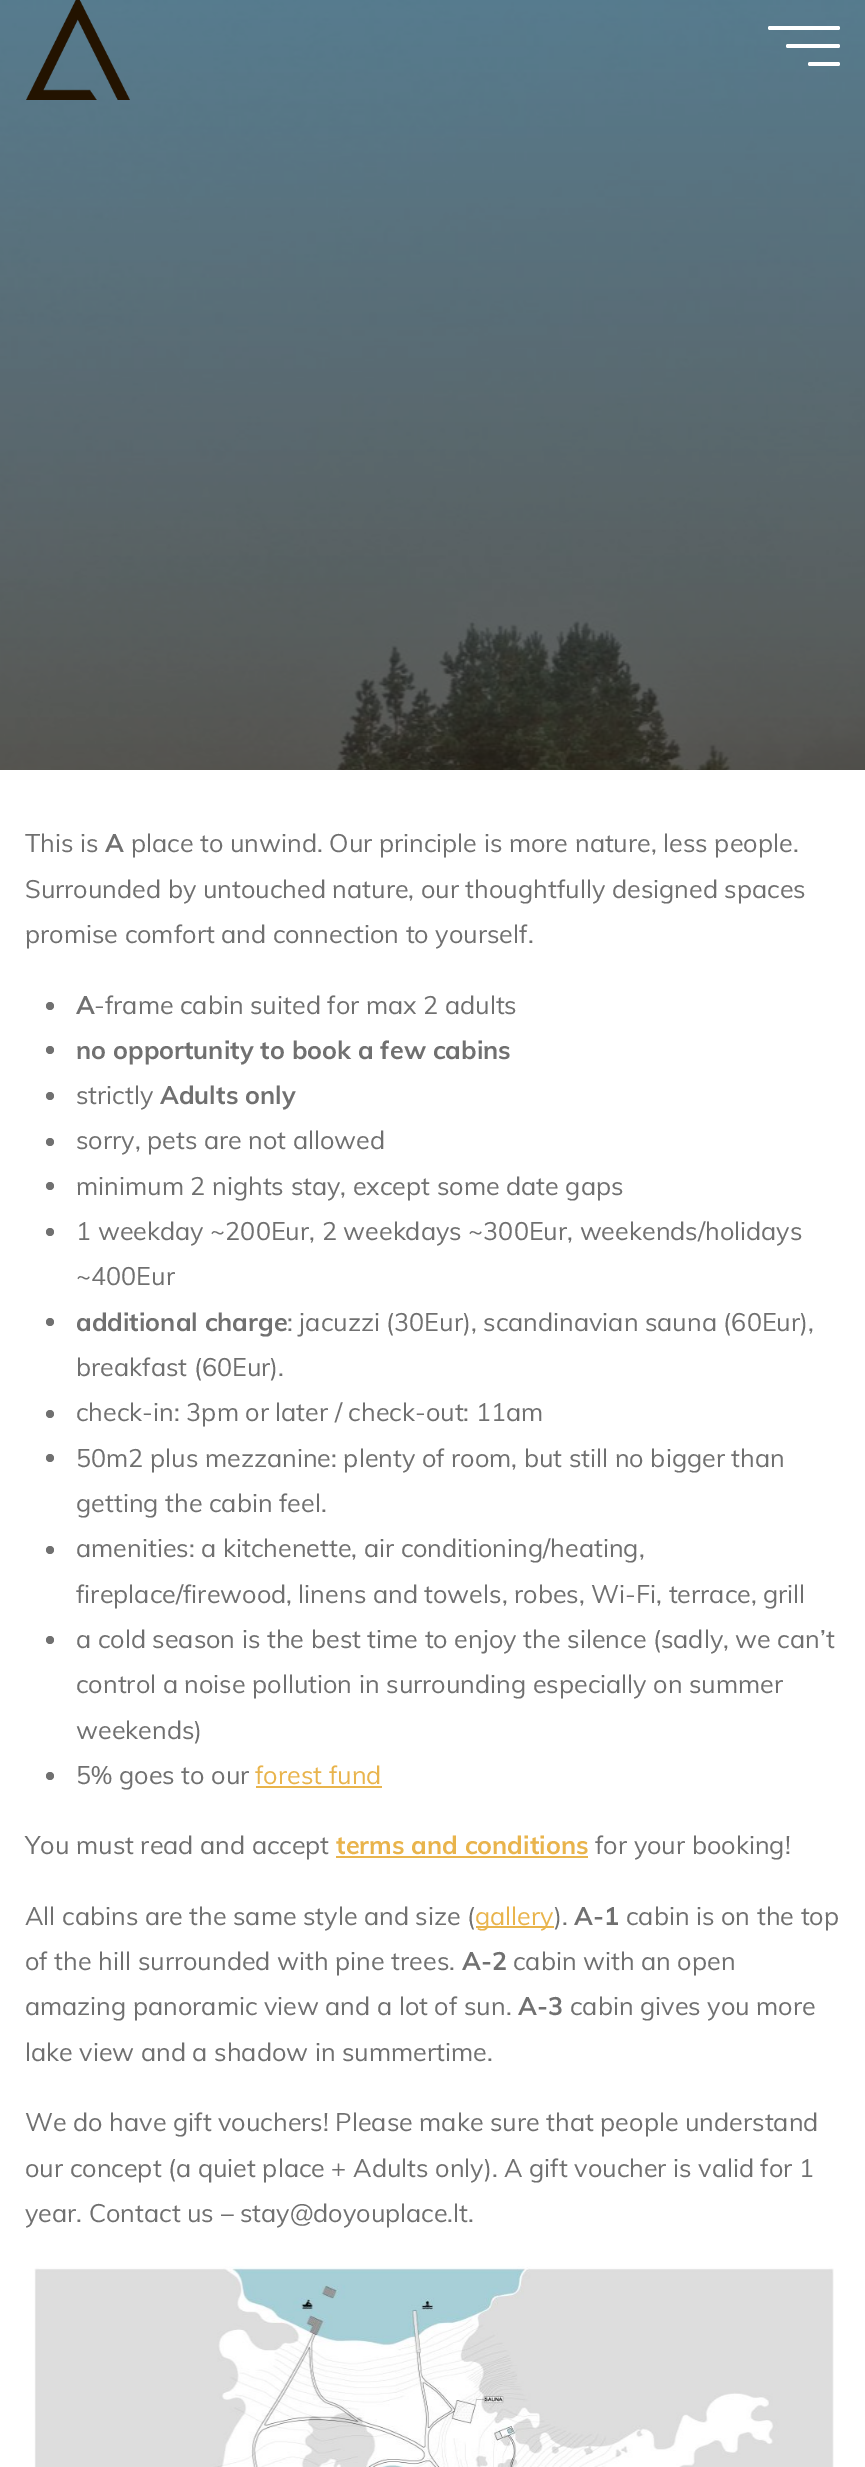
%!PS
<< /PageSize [865 2467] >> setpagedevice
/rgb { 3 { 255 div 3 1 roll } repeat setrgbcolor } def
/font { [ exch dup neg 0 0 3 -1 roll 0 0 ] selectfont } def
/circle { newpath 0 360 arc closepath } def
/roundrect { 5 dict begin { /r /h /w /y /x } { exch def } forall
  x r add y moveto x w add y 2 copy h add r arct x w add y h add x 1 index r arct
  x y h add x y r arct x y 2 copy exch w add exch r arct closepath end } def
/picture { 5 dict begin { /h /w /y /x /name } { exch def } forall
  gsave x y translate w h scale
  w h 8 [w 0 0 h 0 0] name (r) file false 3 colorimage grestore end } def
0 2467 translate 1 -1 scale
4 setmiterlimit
255 255 255 rgb
0 0 865 2467 rectfill
(img/1.rgb) 864 0 1 770 picture
(img/2.rgb) 0 0 865 770 picture
(img/3.rgb) 26 0 104 100 picture
768 26 72 4 2 roundrect fill
786 44 54 4 2 roundrect fill
808 62 32 4 2 roundrect fill
112 112 112 rgb
50 1006 4 circle fill
50 1050 4 circle fill
50 1096 4 circle fill
50 1142 4 circle fill
50 1186 4 circle fill
50 1232 4 circle fill
50 1322 4 circle fill
50 1414 4 circle fill
50 1458 4 circle fill
50 1550 4 circle fill
50 1640 4 circle fill
50 1776 4 circle fill
[
  [256 1786 126 2 233 180 76]
  [336 1856 252 2 233 180 76]
  [476 1926 78 2 233 180 76]
] { aload pop rgb rectfill } forall
(img/4.rgb) 34 2266 800 201 picture
/Muli-Regular 25.2 font
112 112 112 rgb
25 852 moveto (This is) show
/Muli-Bold 25.2 font
105 852 moveto (A) show
/Muli-Regular 25.2 font
[
  [(place to unwind. Our principle is more nature, less people.) 131 852]
  [(Surrounded by untouched nature, our thoughtfully designed spaces) 25 898]
  [(promise comfort and connection to yourself.) 25 943]
] { aload pop moveto show } forall
/Muli-Bold 25.2 font
76 1014 moveto (A) show
/Muli-Regular 25.2 font
94 1014 moveto (-frame cabin suited for max 2 adults) show
/Muli-Bold 25.2 font
76 1059 moveto (no opportunity to book a few cabins) show
/Muli-Regular 25.2 font
76 1104 moveto (strictly) show
/Muli-Bold 25.2 font
160 1104 moveto (Adults only) show
/Muli-Regular 25.2 font
[
  [(sorry, pets are not allowed) 76 1149]
  [(minimum 2 nights stay, except some date gaps) 76 1195]
  [(1 weekday ~200Eur, 2 weekdays ~300Eur, weekends/holidays) 76 1240]
  [(~400Eur) 76 1285]
] { aload pop moveto show } forall
/Muli-Bold 25.2 font
76 1331 moveto (additional charge) show
/Muli-Regular 25.2 font
[
  [(: jacuzzi \(30Eur\), scandinavian sauna \(60Eur\),) 287 1331]
  [(breakfast \(60Eur\).) 76 1376]
  [(check-in: 3pm or later / check-out: 11am) 76 1421]
  [(50m2 plus mezzanine: plenty of room, but still no bigger than) 76 1467]
  [(getting the cabin feel.) 76 1512]
  [(amenities: a kitchenette, air conditioning/heating,) 76 1557]
  [(fireplace/firewood, linens and towels, robes, Wi-Fi, terrace, grill) 76 1603]
  [(a cold season is the best time to enjoy the silence \(sadly, we can’t) 76 1648]
  [(control a noise pollution in surrounding especially on summer) 76 1693]
  [(weekends\)) 76 1739]
  [(5% goes to our) 76 1784]
] { aload pop moveto show } forall
233 180 76 rgb
255 1784 moveto (forest fund) show
112 112 112 rgb
25 1854 moveto (You must read and accept) show
/Muli-Bold 25.2 font
233 180 76 rgb
336 1854 moveto (terms and conditions) show
/Muli-Regular 25.2 font
112 112 112 rgb
595 1854 moveto (for your booking!) show
25 1925 moveto (All cabins are the same style and size \() show
233 180 76 rgb
475 1925 moveto (gallery) show
112 112 112 rgb
554 1925 moveto (\).) show
/Muli-Bold 25.2 font
574 1925 moveto (A-1) show
/Muli-Regular 25.2 font
626 1925 moveto (cabin is on the top) show
25 1970 moveto (of the hill surrounded with pine trees.) show
/Muli-Bold 25.2 font
462 1970 moveto (A-2) show
/Muli-Regular 25.2 font
513 1970 moveto (cabin with an open) show
25 2015 moveto (amazing panoramic view and a lot of sun.) show
/Muli-Bold 25.2 font
518 2015 moveto (A-3) show
/Muli-Regular 25.2 font
[
  [(cabin gives you more) 570 2015]
  [(lake view and a shadow in summertime.) 25 2061]
  [(We do have gift vouchers! Please make sure that people understand) 25 2131]
  [(our concept \(a quiet place + Adults only\). A gift voucher is valid for 1) 25 2177]
  [(year. Contact us – stay@doyouplace.lt.) 25 2222]
] { aload pop moveto show } forall
showpage
